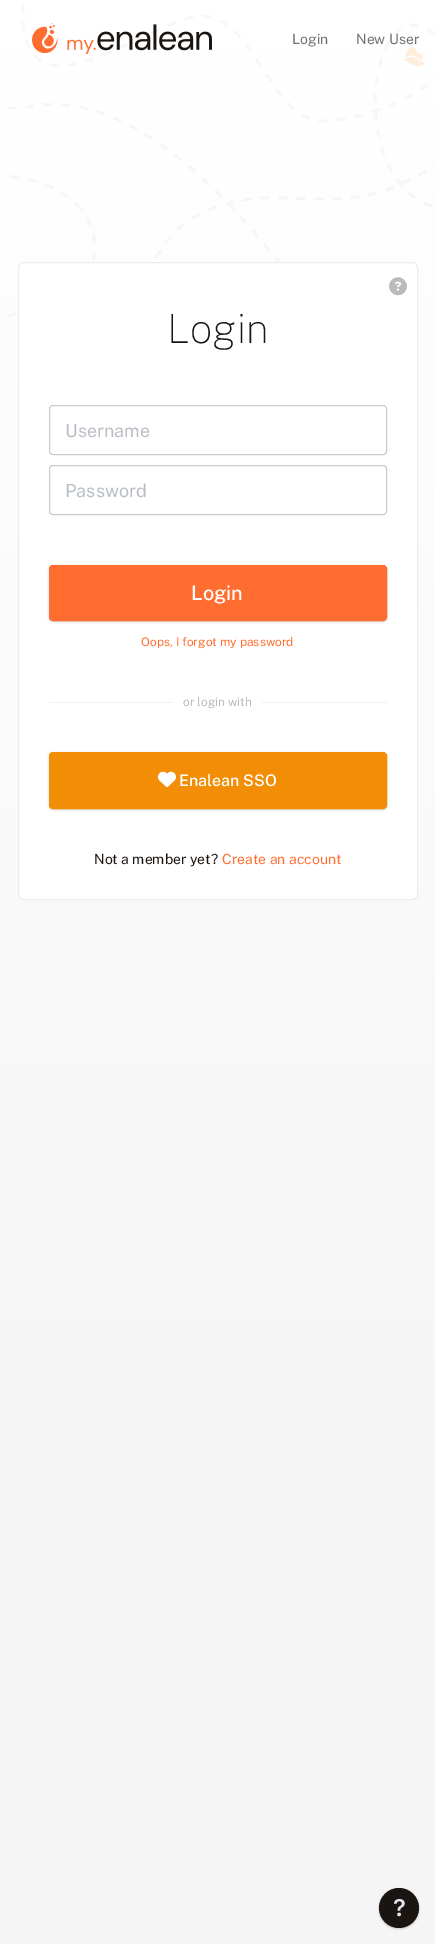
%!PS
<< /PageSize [435 1944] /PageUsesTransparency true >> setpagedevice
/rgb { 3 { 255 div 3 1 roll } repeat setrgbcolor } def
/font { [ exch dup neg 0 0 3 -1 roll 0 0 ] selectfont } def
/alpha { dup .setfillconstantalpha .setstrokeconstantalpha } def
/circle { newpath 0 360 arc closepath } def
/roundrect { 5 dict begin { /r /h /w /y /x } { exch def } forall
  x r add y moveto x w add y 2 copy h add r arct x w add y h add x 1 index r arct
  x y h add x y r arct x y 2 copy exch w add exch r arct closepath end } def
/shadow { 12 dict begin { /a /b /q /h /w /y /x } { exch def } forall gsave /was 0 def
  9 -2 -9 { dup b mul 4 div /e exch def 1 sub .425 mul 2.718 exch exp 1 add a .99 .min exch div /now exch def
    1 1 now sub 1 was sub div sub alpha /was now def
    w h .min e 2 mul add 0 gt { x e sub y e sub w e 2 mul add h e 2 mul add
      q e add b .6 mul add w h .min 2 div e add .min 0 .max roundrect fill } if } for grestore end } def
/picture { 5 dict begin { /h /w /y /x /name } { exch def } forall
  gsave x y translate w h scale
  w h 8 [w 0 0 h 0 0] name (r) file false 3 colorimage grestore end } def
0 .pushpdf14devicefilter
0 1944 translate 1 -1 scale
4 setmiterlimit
255 255 255 rgb
0 0 435 1944 rectfill
(img/1.rgb) 0 4 435 1940 picture
(img/2.rgb) 32 23 180 31 picture
18.5 262.5 399 637 5.5 roundrect gsave fill grestore
237 237 237 rgb
stroke
(img/3.rgb) 389 277 18 19 picture
199 203 208 rgb
49.5 405.5 337 49 3.5 roundrect stroke
49.5 465.5 337 49 3.5 roundrect stroke
0 0 0 rgb
49 566 338 56 4 1 0.1 shadow
49 566 338 56 4 1 0.08 shadow
255 110 48 rgb
49.5 565.5 337 55 3.5 roundrect gsave fill grestore
stroke
241 241 241 rgb
49 702 338 1 rectfill
255 255 255 rgb
173 702 89 1 rectfill
0 0 0 rgb
49 753 338 57 4 1 0.1 shadow
49 753 338 57 4 1 0.08 shadow
241 142 6 rgb
49.5 752.5 337 56 3.5 roundrect gsave fill grestore
stroke
(img/4.rgb) 158 771 18 17 picture
0 0 0 rgb
379 1889 40 40 20 1 0.1 shadow
379 1889 40 40 20 1 0.08 shadow
27 21 18 rgb
399 1908 20 circle fill
(img/5.rgb) 394 1898 11 19 picture
/PublicSans-Regular 14 font
113 113 113 rgb
292 44 moveto (Login) show
356 44 moveto (New User) show
/PublicSans-Thin 40 font
27 21 18 rgb
167 343 moveto (Login) show
/PublicSans-Regular 18 font
185 190 197 rgb
65 437 moveto (Username) show
65 497 moveto (Password) show
/PublicSans-Medium 20 font
255 255 255 rgb
191 600 moveto (Login) show
/PublicSans-Regular 12 font
255 110 48 rgb
141 646 moveto (Oops, I forgot my password) show
187 187 187 rgb
183 706 moveto (or login with) show
/PublicSans-Medium 16 font
255 255 255 rgb
179 786 moveto (Enalean SSO) show
/PublicSans-Regular 14 font
27 21 18 rgb
94 864 moveto (Not a member yet?) show
255 110 48 rgb
222 864 moveto (Create an account) show
.poppdf14devicefilter showpage
